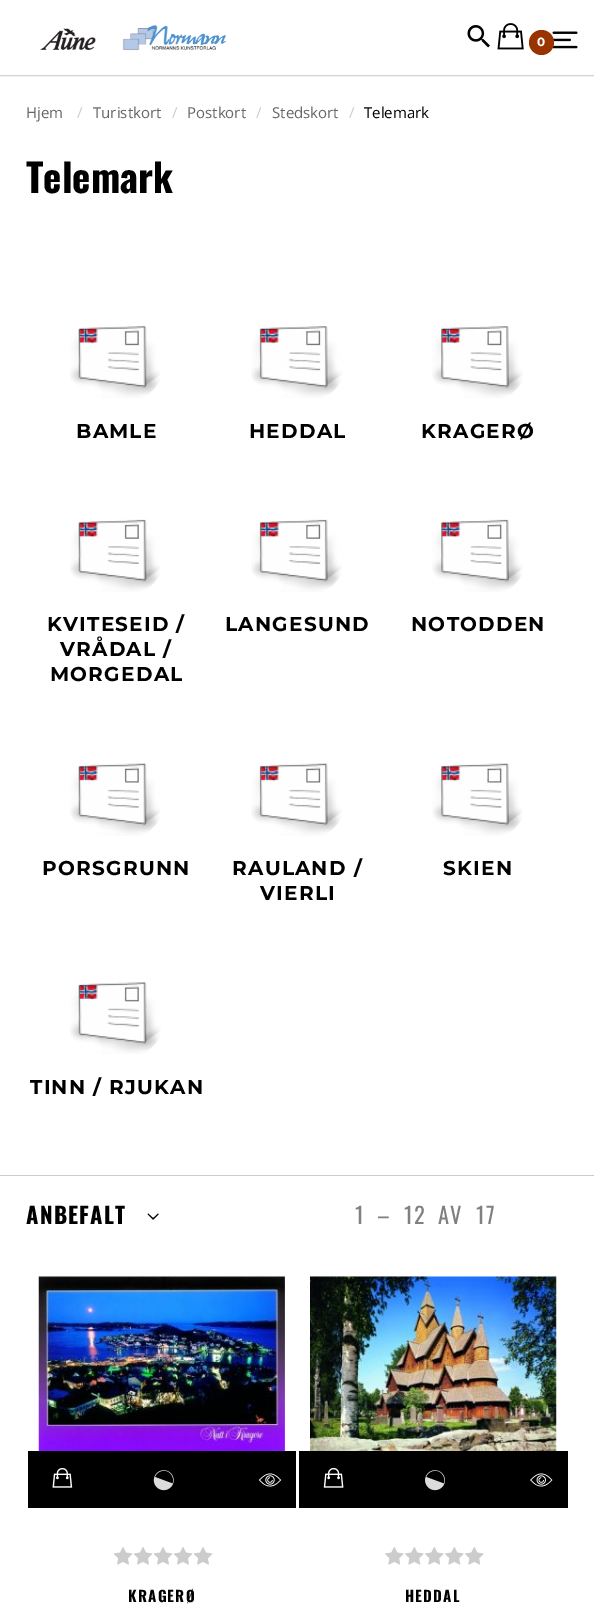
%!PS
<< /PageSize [594 1607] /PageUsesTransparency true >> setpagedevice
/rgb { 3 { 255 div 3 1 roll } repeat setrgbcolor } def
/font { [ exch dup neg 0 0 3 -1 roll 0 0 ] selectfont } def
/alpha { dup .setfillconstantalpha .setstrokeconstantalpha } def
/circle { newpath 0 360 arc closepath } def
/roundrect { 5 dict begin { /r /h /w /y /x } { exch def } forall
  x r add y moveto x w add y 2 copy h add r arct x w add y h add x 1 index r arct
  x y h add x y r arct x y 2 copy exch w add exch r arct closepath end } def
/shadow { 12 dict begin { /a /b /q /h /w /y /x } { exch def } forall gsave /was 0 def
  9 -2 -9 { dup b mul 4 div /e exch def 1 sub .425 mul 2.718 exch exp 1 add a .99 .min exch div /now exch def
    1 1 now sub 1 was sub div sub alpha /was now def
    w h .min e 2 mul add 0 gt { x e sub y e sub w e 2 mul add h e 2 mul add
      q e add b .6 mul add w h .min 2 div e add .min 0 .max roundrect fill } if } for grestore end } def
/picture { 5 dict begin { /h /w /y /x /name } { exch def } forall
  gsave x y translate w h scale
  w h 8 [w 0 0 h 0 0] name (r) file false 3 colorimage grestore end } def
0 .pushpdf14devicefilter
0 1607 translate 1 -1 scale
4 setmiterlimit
255 255 255 rgb
0 0 594 1607 rectfill
gsave
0 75 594 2 rectclip
204 204 204 rgb
0 1 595 75 0 0.5 1 shadow
grestore
(img/1.rgb) 40 25 186 25 picture
(img/2.rgb) 467 25 23 23 picture
(img/3.rgb) 497 23 27 27 picture
(img/4.rgb) 552 31 26 18 picture
153 51 0 rgb
541.5 42.5 12.5 circle fill
(img/5.rgb) 70 326 90 72 picture
(img/6.rgb) 251 326 91 72 picture
(img/7.rgb) 432 326 91 72 picture
(img/8.rgb) 70 519 90 73 picture
(img/9.rgb) 251 519 91 73 picture
(img/10.rgb) 432 519 91 73 picture
(img/11.rgb) 70 763 90 73 picture
(img/12.rgb) 251 763 91 73 picture
(img/13.rgb) 432 763 91 73 picture
(img/14.rgb) 70 982 91 72 picture
204 204 204 rgb
0 1175 594 1 rectfill
(img/15.rgb) 147 1213 12 7 picture
(img/16.rgb) 38 1276 247 175 picture
0 0 0 rgb
28 1451 268 57 rectfill
(img/17.rgb) 52 1468 21 20 picture
(img/18.rgb) 153 1470 21 21 picture
(img/19.rgb) 258 1473 24 14 picture
(img/20.rgb) 113 1547 20 18 picture
(img/20.rgb) 133 1547 20 18 picture
(img/20.rgb) 153 1547 20 18 picture
(img/20.rgb) 173 1547 20 18 picture
(img/20.rgb) 193 1547 20 18 picture
(img/21.rgb) 310 1276 247 175 picture
299 1451 269 57 rectfill
(img/22.rgb) 323 1468 21 20 picture
(img/23.rgb) 425 1470 20 21 picture
(img/24.rgb) 530 1473 23 14 picture
(img/25.rgb) 385 1547 19 18 picture
(img/25.rgb) 405 1547 19 18 picture
(img/25.rgb) 425 1547 19 18 picture
(img/25.rgb) 445 1547 19 18 picture
(img/25.rgb) 465 1547 19 18 picture
/Montserrat-Bold 12 font
255 255 255 rgb
537 46 moveto (0) show
/OpenSans-Regular 15 font
102 102 102 rgb
26 118 moveto (Hjem) show
204 204 204 rgb
77 118 moveto (/) show
102 102 102 rgb
93 118 moveto (Turistkort) show
204 204 204 rgb
172 118 moveto (/) show
102 102 102 rgb
187 118 moveto (Postkort) show
204 204 204 rgb
256 118 moveto (/) show
102 102 102 rgb
272 118 moveto (Stedskort) show
204 204 204 rgb
349 118 moveto (/) show
0 0 0 rgb
364 118 moveto (Telemark) show
/Oswald-Bold 39 font
26 193 moveto (Telemark) show
/Montserrat-Bold 20 font
76 438 moveto 1.25 0 (BAMLE) ashow
249 438 moveto 1.25 0 (HEDDAL) ashow
421 438 moveto 1.25 0 (KRAGERØ) ashow
47 631 moveto 1.25 0 (KVITESEID /) ashow
60 656 moveto 1.25 0 (VRÅDAL /) ashow
50 681 moveto 1.25 0 (MORGEDAL) ashow
225 631 moveto 1.25 0 (LANGESUND) ashow
411 631 moveto 1.25 0 (NOTODDEN) ashow
42 875 moveto 1.25 0 (PORSGRUNN) ashow
232 875 moveto 1.25 0 (RAULAND /) ashow
260 900 moveto 1.25 0 (VIERLI) ashow
443 875 moveto 1.25 0 (SKIEN) ashow
30 1094 moveto 1.25 0 (TINN / RJUKAN) ashow
/Oswald-Bold 22.5 font
26 1224 moveto 1.25 0 (ANBEFALT) ashow
/Oswald-Regular 22.5 font
128 128 128 rgb
355 1224 moveto 1.25 0 (1) ashow
377 1224 moveto 1.25 0 (–) ashow
404 1224 moveto 1.25 0 (12) ashow
438 1224 moveto 1.25 0 (AV) ashow
476 1224 moveto 1.25 0 (17) ashow
/Oswald-Bold 15 font
0 0 0 rgb
128 1602 moveto 1.25 0 (KRAGERØ) ashow
405 1602 moveto 1.25 0 (HEDDAL) ashow
.poppdf14devicefilter showpage
